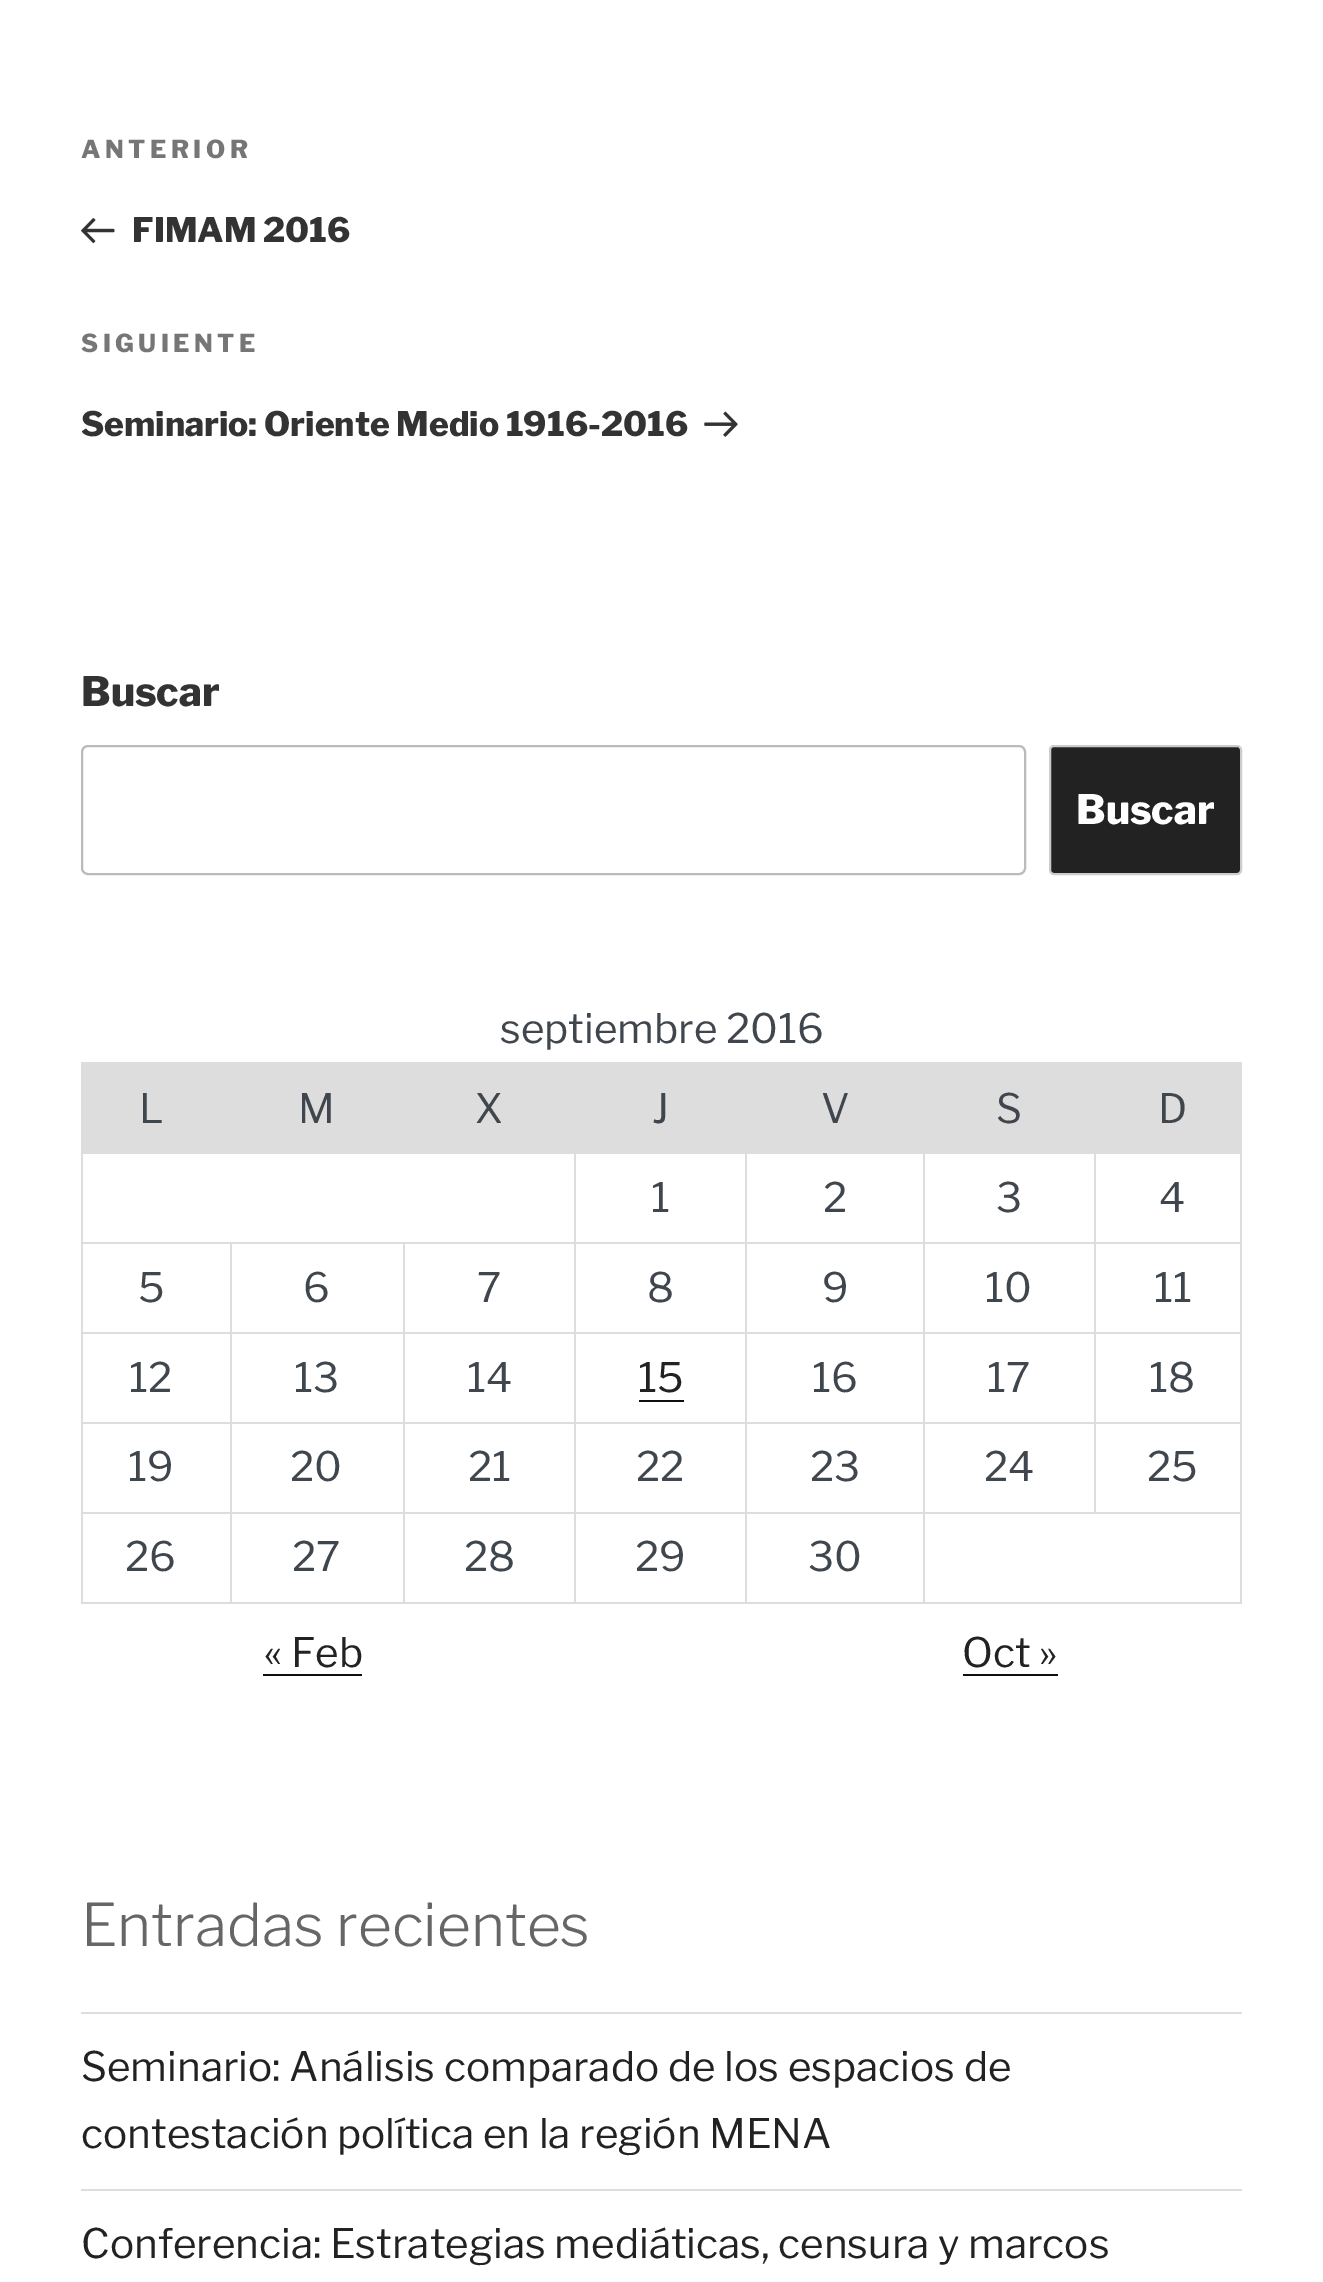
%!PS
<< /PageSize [1323 2282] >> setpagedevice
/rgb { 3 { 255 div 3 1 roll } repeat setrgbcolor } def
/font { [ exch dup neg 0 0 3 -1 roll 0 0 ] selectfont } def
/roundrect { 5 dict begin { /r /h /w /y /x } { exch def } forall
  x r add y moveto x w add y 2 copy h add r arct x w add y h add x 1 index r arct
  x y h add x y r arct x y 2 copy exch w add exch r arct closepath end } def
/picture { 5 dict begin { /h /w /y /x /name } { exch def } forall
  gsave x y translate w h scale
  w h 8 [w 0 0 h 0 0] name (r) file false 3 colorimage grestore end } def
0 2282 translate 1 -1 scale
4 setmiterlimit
255 255 255 rgb
0 0 1323 2282 rectfill
(img/1.rgb) 81 218 34 26 picture
(img/2.rgb) 704 411 34 26 picture
187 187 187 rgb
2 setlinewidth
82 746 943 128 6 roundrect stroke
34 34 34 rgb
1050 746 191 128 4 roundrect gsave fill grestore
204 204 204 rgb
stroke
[
  [83 1064 1159 88 221 221 221]
  [81 1062 1161 2 221 221 221]
  [1094 1152 148 2 221 221 221]
  [1094 1242 148 2 221 221 221]
  [1094 1332 148 2 221 221 221]
  [1094 1422 148 2 221 221 221]
  [923 1512 319 2 221 221 221]
  [1094 1422 2 92 221 221 221]
  [923 1422 173 2 221 221 221]
  [1094 1332 2 92 221 221 221]
  [923 1332 173 2 221 221 221]
  [1094 1242 2 92 221 221 221]
  [923 1242 173 2 221 221 221]
  [1094 1152 2 92 221 221 221]
  [923 1152 173 2 221 221 221]
  [1240 1512 2 92 221 221 221]
  [923 1602 319 2 221 221 221]
  [923 1512 2 92 221 221 221]
  [745 1512 180 2 221 221 221]
  [923 1422 2 92 221 221 221]
  [745 1422 180 2 221 221 221]
  [923 1332 2 92 221 221 221]
  [745 1332 180 2 221 221 221]
  [923 1242 2 92 221 221 221]
  [745 1242 180 2 221 221 221]
  [923 1152 2 92 221 221 221]
  [745 1152 180 2 221 221 221]
  [745 1602 180 2 221 221 221]
  [745 1512 2 92 221 221 221]
  [574 1512 173 2 221 221 221]
  [745 1422 2 92 221 221 221]
  [574 1422 173 2 221 221 221]
  [745 1332 2 92 221 221 221]
  [574 1332 173 2 221 221 221]
  [745 1242 2 92 221 221 221]
  [574 1242 173 2 221 221 221]
  [745 1152 2 92 221 221 221]
  [574 1152 173 2 221 221 221]
  [574 1602 173 2 221 221 221]
  [574 1512 2 92 221 221 221]
  [403 1512 173 2 221 221 221]
  [574 1422 2 92 221 221 221]
  [403 1422 173 2 221 221 221]
  [574 1332 2 92 221 221 221]
  [403 1332 173 2 221 221 221]
  [574 1242 2 92 221 221 221]
  [403 1242 173 2 221 221 221]
  [574 1152 2 92 221 221 221]
  [81 1152 495 2 221 221 221]
  [403 1602 173 2 221 221 221]
  [403 1512 2 92 221 221 221]
  [230 1512 175 2 221 221 221]
  [403 1422 2 92 221 221 221]
  [230 1422 175 2 221 221 221]
  [403 1332 2 92 221 221 221]
  [230 1332 175 2 221 221 221]
  [403 1242 2 92 221 221 221]
  [230 1242 175 2 221 221 221]
  [230 1602 175 2 221 221 221]
  [230 1512 2 92 221 221 221]
  [81 1512 151 2 221 221 221]
  [230 1422 2 92 221 221 221]
  [81 1422 151 2 221 221 221]
  [230 1332 2 92 221 221 221]
  [81 1332 151 2 221 221 221]
  [230 1242 2 92 221 221 221]
  [81 1242 151 2 221 221 221]
  [81 1602 151 2 221 221 221]
  [81 1512 2 92 221 221 221]
  [81 1422 2 92 221 221 221]
  [81 1332 2 92 221 221 221]
  [81 1242 2 92 221 221 221]
  [81 1152 2 92 221 221 221]
  [81 1062 2 92 221 221 221]
  [1240 1422 2 92 221 221 221]
  [1240 1332 2 92 221 221 221]
  [1240 1242 2 92 221 221 221]
  [1240 1152 2 92 221 221 221]
  [639 1400 45 2 15 15 15]
  [263 1674 99 2 15 15 15]
  [963 1674 95 2 15 15 15]
  [81 2012 1161 2 221 221 221]
  [81 2189 1161 2 221 221 221]
] { aload pop rgb rectfill } forall
/LibreFranklin-Thin 24.75 font
118 118 118 rgb
81 158 moveto 4.5 0 (ANTERIOR) ashow
/LibreFranklin-Thin 33.75 font
51 51 51 rgb
132 242 moveto (FIMAM 2016) show
/LibreFranklin-Thin 24.75 font
118 118 118 rgb
81 352 moveto 4.5 0 (SIGUIENTE) ashow
/LibreFranklin-Thin 33.75 font
51 51 51 rgb
81 436 moveto (Seminario: Oriente Medio 1916-2016) show
/LibreFranklin-Thin 40.5 font
81 706 moveto (Buscar) show
255 255 255 rgb
1076 824 moveto (Buscar) show
/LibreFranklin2-Thin 40.5 font
64 70 77 rgb
[
  [(septiembre 2016) 500 1043]
  [(L) 139 1123]
  [(M) 298 1123]
  [(X) 475 1123]
  [(J) 652 1123]
  [(V) 821 1123]
  [(S) 996 1123]
  [(D) 1158 1123]
  [(1) 651 1212]
  [(2) 823 1212]
  [(3) 996 1212]
  [(4) 1159 1212]
  [(5) 138 1302]
  [(6) 303 1302]
  [(7) 477 1302]
  [(8) 647 1302]
  [(9) 822 1302]
  [(10) 985 1302]
  [(11) 1154 1302]
  [(12) 129 1392]
  [(13) 294 1392]
  [(14) 467 1392]
] { aload pop moveto show } forall
34 34 34 rgb
638 1392 moveto (15) show
64 70 77 rgb
[
  [(16) 812 1392]
  [(17) 987 1392]
  [(18) 1149 1392]
  [(19) 128 1481]
  [(20) 290 1481]
  [(21) 468 1481]
  [(22) 636 1481]
  [(23) 810 1481]
  [(24) 984 1481]
  [(25) 1147 1481]
  [(26) 125 1571]
  [(27) 292 1571]
  [(28) 464 1571]
  [(29) 635 1571]
  [(30) 808 1571]
] { aload pop moveto show } forall
34 34 34 rgb
264 1667 moveto (« Feb) show
962 1667 moveto (Oct ») show
/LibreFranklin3-Thin 58.5 font
102 102 102 rgb
81 1946 moveto (Entradas recientes) show
/LibreFranklin2-Thin 40.5 font
34 34 34 rgb
[
  [(Seminario: Análisis comparado de los espacios de) 81 2081]
  [(contestación política en la región MENA) 81 2148]
  [(Conferencia: Estrategias mediáticas, censura y marcos) 81 2258]
] { aload pop moveto show } forall
showpage
